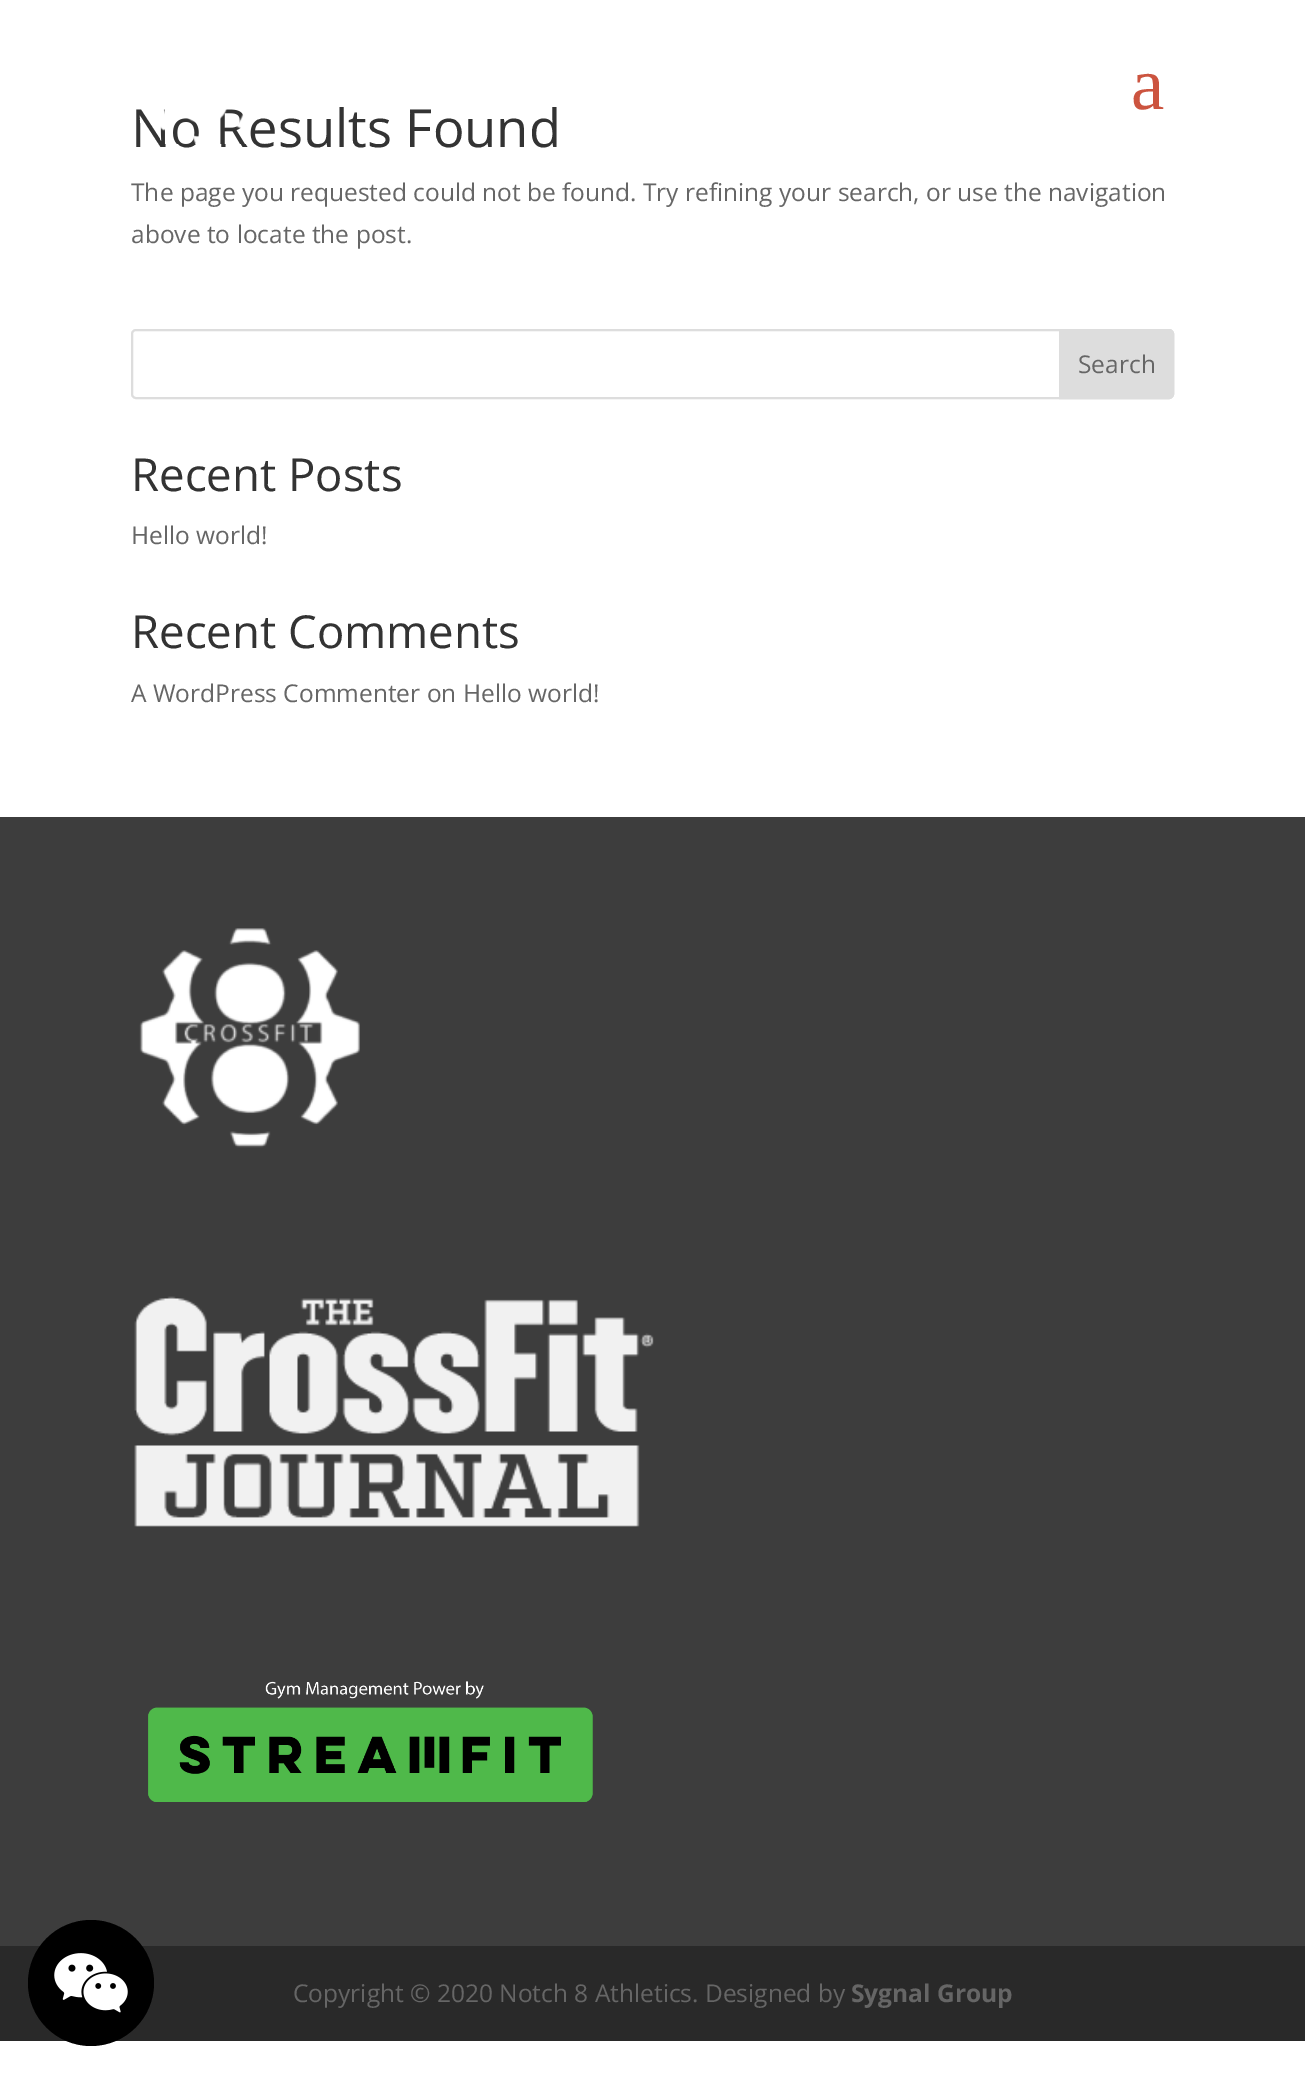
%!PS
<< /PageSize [1305 2073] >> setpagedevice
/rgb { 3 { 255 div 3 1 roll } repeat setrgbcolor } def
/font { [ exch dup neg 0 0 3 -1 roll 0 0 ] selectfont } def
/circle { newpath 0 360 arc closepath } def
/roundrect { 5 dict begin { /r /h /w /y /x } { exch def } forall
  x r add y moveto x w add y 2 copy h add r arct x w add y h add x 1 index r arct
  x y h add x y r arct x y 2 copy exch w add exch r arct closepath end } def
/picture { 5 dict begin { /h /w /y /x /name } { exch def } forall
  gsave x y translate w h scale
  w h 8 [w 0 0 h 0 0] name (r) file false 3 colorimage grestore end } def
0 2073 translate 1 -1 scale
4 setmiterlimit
255 255 255 rgb
0 0 1305 2073 rectfill
61 61 61 rgb
0 817 1305 1129 rectfill
41 41 41 rgb
0 1946 1305 95 rectfill
0 0 0 rgb
91 1983 63 circle fill
(img/1.rgb) 54 1953 74 60 picture
221 221 221 rgb
2 setlinewidth
132 330 1041 68 4 roundrect stroke
1060 330 moveto 1169 330 lineto 1171 330 1173 332 1173 334 curveto 1173 394 lineto 1173 396 1171 398 1169 398 curveto 1060 398 lineto closepath gsave fill grestore
stroke
(img/3.rgb) 139 928 221 220 picture
(img/4.rgb) 134 1296 520 231 picture
(img/5.rgb) 148 1681 445 121 picture
/LiberationSerif-Regular 75 font
204 84 63 rgb
1131 109 moveto (a) show
/OpenSans-Regular 52.5 font
51 51 51 rgb
131 147 moveto (No Results Found) show
(img/2.rgb) 160 109 98 35 picture
/OpenSans-Regular 24.5 font
102 102 102 rgb
[
  [(The page you requested could not be found. Try refining your search, or use the navigation) 131 201]
  [(above to locate the post.) 131 243]
  [(Search) 1078 373]
] { aload pop moveto show } forall
/OpenSans-Regular 45.5 font
51 51 51 rgb
131 491 moveto (Recent Posts) show
/OpenSans-Regular 24.5 font
102 102 102 rgb
131 544 moveto (Hello world!) show
/OpenSans-Regular 45.5 font
51 51 51 rgb
131 648 moveto (Recent Comments) show
/OpenSans-Regular 24.5 font
102 102 102 rgb
131 702 moveto (A WordPress Commenter on Hello world!) show
293 2002 moveto (Copyright © 2020 Notch 8 Athletics. Designed by) show
/OpenSans-Bold 24.5 font
851 2002 moveto (Sygnal Group) show
showpage
